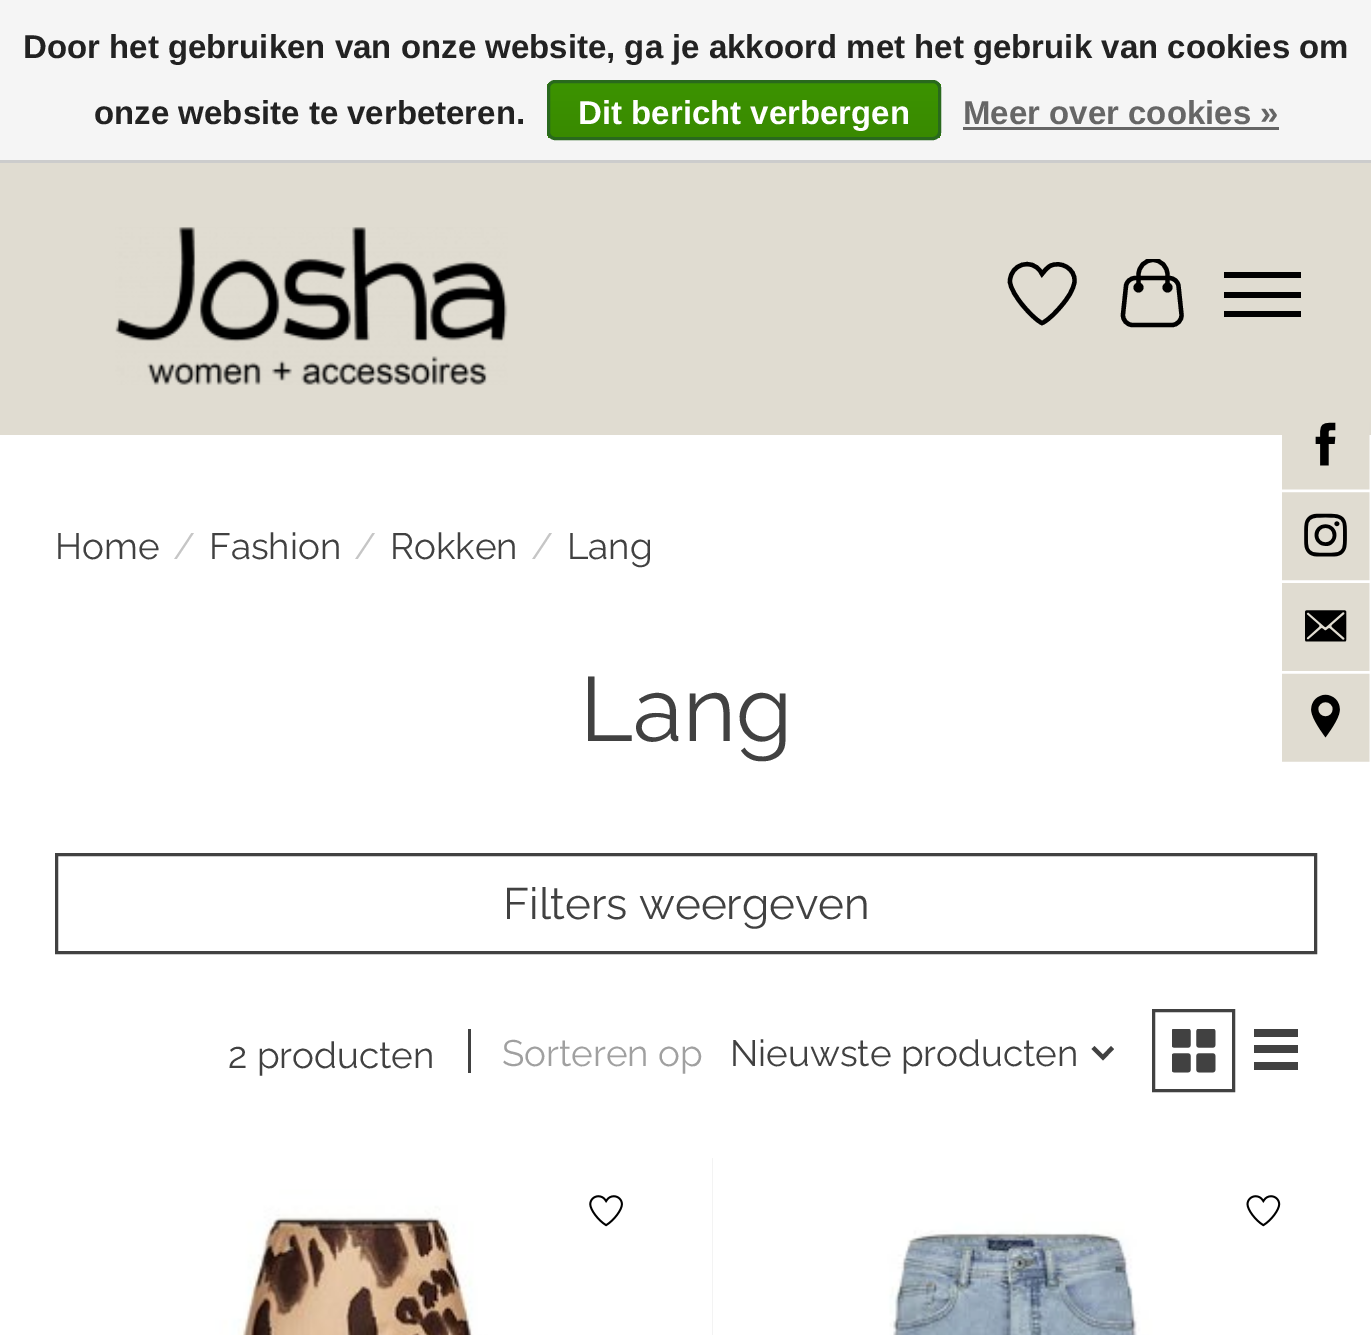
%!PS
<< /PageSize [1371 1335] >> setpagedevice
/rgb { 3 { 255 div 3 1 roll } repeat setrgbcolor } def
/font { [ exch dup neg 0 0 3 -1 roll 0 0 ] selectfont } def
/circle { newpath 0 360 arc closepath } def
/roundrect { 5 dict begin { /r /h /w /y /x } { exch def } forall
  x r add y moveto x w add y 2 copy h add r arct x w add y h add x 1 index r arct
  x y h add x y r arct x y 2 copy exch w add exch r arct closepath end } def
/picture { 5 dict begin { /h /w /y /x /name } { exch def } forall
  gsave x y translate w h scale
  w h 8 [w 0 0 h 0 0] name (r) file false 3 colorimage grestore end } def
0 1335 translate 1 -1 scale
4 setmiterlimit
255 255 255 rgb
0 0 1371 1335 rectfill
245 245 245 rgb
0 0 1371 160 rectfill
204 204 204 rgb
0 160 1371 3 rectfill
gsave
547 80 394 60 8 roundrect clip newpath
gsave 547 83 moveto 941 83 lineto 941 138 lineto 547 138 lineto closepath clip newpath
<< /ShadingType 2 /ColorSpace /DeviceRGB /Coords [744 82 744 138] /Extend [true true] /Function << /FunctionType 2 /Domain [0 1] /C0 [0.235 0.576 0] /C1 [0.224 0.541 0] /N 1 >> >> shfill grestore
grestore
41 105 29 rgb
3 setlinewidth
548.5 81.5 391 57 6.5 roundrect stroke
102 102 102 rgb
963 127 316 3 rectfill
224 220 209 rgb
0 163 1371 272 rectfill
(img/1.rgb) 115 227 393 158 picture
0 0 0 rgb
4.3 setlinewidth
1040.5 271.5 moveto 1042 274 lineto 1044.5 271 1046.5 268 1050 266 curveto 1060.5 260.5 1075.5 268.5 1074.5 281.5 curveto 1073.5 290 1067.5 298.5 1062 305 curveto 1057.5 310.5 1049 320 1042 323 curveto 1035.5 320 1027 310.5 1022.5 305 curveto 1018 299.5 1009.5 288 1010 280.5 curveto 1011 264 1031.5 258 1040.5 271.5 curveto closepath stroke
1126 286 moveto 1126.5 281.5 1130.5 278 1135.5 278 curveto 1169 278 lineto 1174 278 1178 281.5 1178.5 286 curveto 1181.5 314.5 lineto 1182 320 1177.5 325 1172 325 curveto 1132.5 325 lineto 1127 325 1122.5 320 1123 314.5 curveto closepath stroke
gsave
1117 259 71 71 rectclip
1138.5 286 moveto 1138.5 275 lineto 1138.5 266.5 1145 260 1153 260 curveto 1161 260 1167.5 266.5 1167.5 275 curveto 1167.5 286 lineto stroke
grestore
1138.5 287.5 5 circle fill
1167.5 287.5 5 circle fill
[
  [1224 292 77 6 0 0 0]
  [1224 272 77 6 0 0 0]
  [1224 311 77 6 0 0 0]
] { aload pop rgb rectfill } forall
(img/2.rgb) 1282 422 88 340 picture
65 65 65 rgb
3 setlinewidth
56.5 854.5 1259 98 rectstroke
468 1029 3 44 rectfill
1103 1060.5 moveto 1091.5 1049 lineto 1094.5 1046 lineto 1103 1054.5 lineto 1111 1046 lineto 1114 1049 lineto closepath fill
1153.5 1010.5 80 80 rectstroke
(img/3.rgb) 1172 1029 44 44 picture
[
  [1254 1029 44 8 65 65 65]
  [1254 1045 44 8 65 65 65]
  [1254 1062 44 8 65 65 65]
] { aload pop rgb rectfill } forall
(img/4.rgb) 55 1158 602 177 picture
(img/5.rgb) 589 1195 34 32 picture
227 227 227 rgb
712 1158 1 177 rectfill
(img/6.rgb) 712 1158 605 177 picture
(img/7.rgb) 1246 1195 35 32 picture
/LiberationSans-Bold 33 font
34 34 34 rgb
23 58 moveto (Door het gebruiken van onze website, ga je akkoord met het gebruik van cookies om) show
94 124 moveto (onze website te verbeteren.) show
255 255 255 rgb
578 124 moveto (Dit bericht verbergen) show
102 102 102 rgb
963 124 moveto (Meer over cookies ») show
/Raleway-Regular 36.75 font
65 65 65 rgb
55 559 moveto (Home) show
198 198 198 rgb
173 559 moveto (/) show
65 65 65 rgb
209 559 moveto (Fashion) show
198 198 198 rgb
354 559 moveto (/) show
65 65 65 rgb
390 559 moveto (Rokken) show
198 198 198 rgb
531 559 moveto (/) show
65 65 65 rgb
567 559 moveto (Lang) show
/Raleway-Regular 91 font
580 741 moveto (Lang) show
/Raleway-Regular 44 font
503 919 moveto (Filters weergeven) show
/Raleway-Regular 36.75 font
228 1068 moveto (2 producten) show
160 160 160 rgb
502 1066 moveto (Sorteren op) show
65 65 65 rgb
730 1066 moveto (Nieuwste producten) show
showpage
